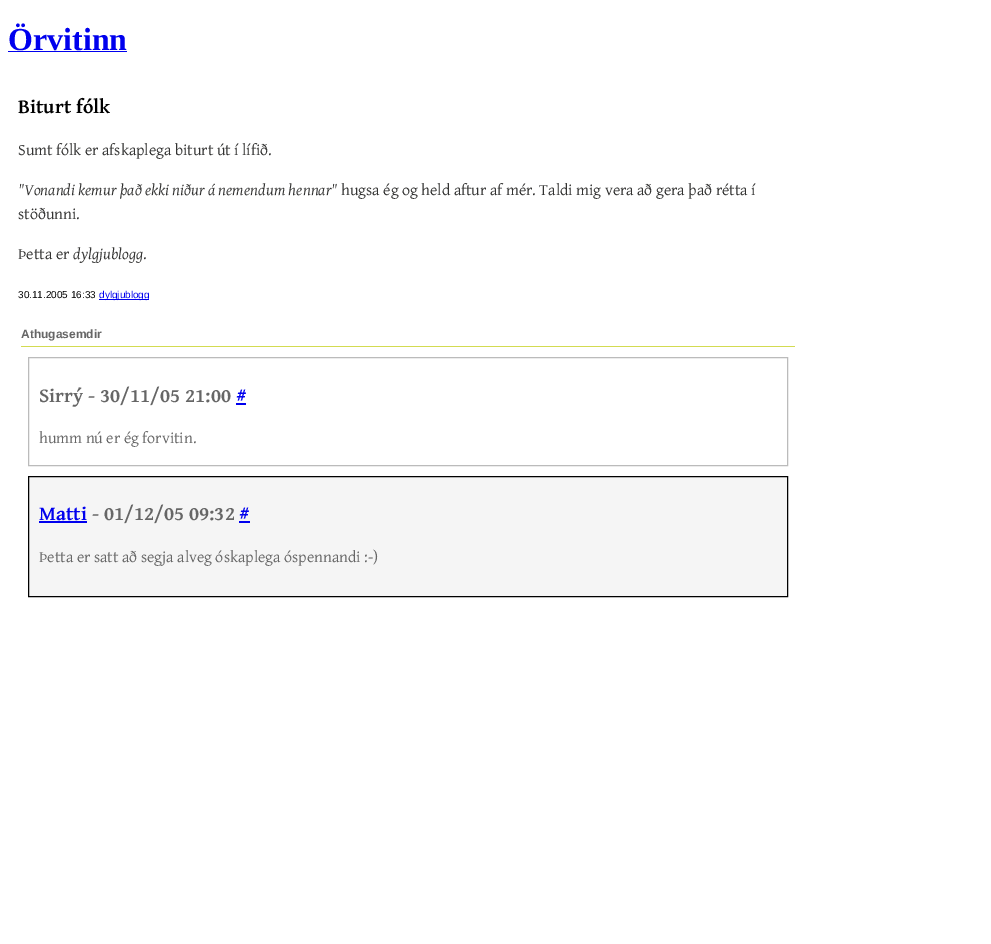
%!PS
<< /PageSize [991 944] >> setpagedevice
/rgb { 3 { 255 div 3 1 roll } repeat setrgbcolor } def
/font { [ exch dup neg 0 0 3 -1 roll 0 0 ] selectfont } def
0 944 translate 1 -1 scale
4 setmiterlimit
255 255 255 rgb
0 0 991 944 rectfill
[
  [8 51 119 1 0 0 238]
  [99 299 50 1 0 0 238]
  [21 346 774 1 211 219 81]
] { aload pop rgb rectfill } forall
187 187 187 rgb
28.5 357.5 759 108 rectstroke
0 0 238 rgb
236 403 10 2 rectfill
245 245 245 rgb
28.5 476.5 moveto 787.5 476.5 lineto 787.5 596.5 lineto 28.5 596.5 lineto closepath gsave fill grestore
0 0 0 rgb
stroke
0 0 238 rgb
39 521 48 2 rectfill
239 521 11 2 rectfill
/LiberationSerif-Bold 32 font
8 50 moveto (Örvitinn) show
/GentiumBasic-Bold 20 font
0 0 0 rgb
18 113 moveto (Biturt fólk) show
/GentiumBasic-Regular 16 font
51 51 50 rgb
18 155 moveto (Sumt fólk er afskaplega biturt út í lífið.) show
/GentiumBasic-Italic 16 font
18 195 moveto ("Vonandi kemur það ekki niður á nemendum hennar") show
/GentiumBasic-Regular 16 font
[
  [(hugsa ég og held aftur af mér. Taldi mig vera að gera það rétta í) 341 195]
  [(stöðunni.) 18 219]
  [(Þetta er) 18 259]
] { aload pop moveto show } forall
/GentiumBasic-Italic 16 font
73 259 moveto (dylgjublogg) show
/GentiumBasic-Regular 16 font
143 259 moveto (.) show
/LiberationSans-Regular 10 font
0 0 0 rgb
18 298 moveto (30.11.2005 16:33) show
0 0 238 rgb
99 298 moveto (dylgjublogg) show
/LiberationSans-Bold 12 font
102 102 102 rgb
21 338 moveto (Athugasemdir) show
/GentiumBasic-Bold 20 font
39 402 moveto (Sirrý - 30/11/05 21:00) show
0 0 238 rgb
236 402 moveto (#) show
/GentiumBasic-Regular 16 font
102 102 102 rgb
39 443 moveto (humm nú er ég forvitin.) show
/GentiumBasic-Bold 20 font
0 0 238 rgb
39 520 moveto (Matti) show
102 102 102 rgb
92 520 moveto (- 01/12/05 09:32) show
0 0 238 rgb
239 520 moveto (#) show
/GentiumBasic-Regular 16 font
102 102 102 rgb
39 562 moveto (Þetta er satt að segja alveg óskaplega óspennandi :-\)) show
showpage
